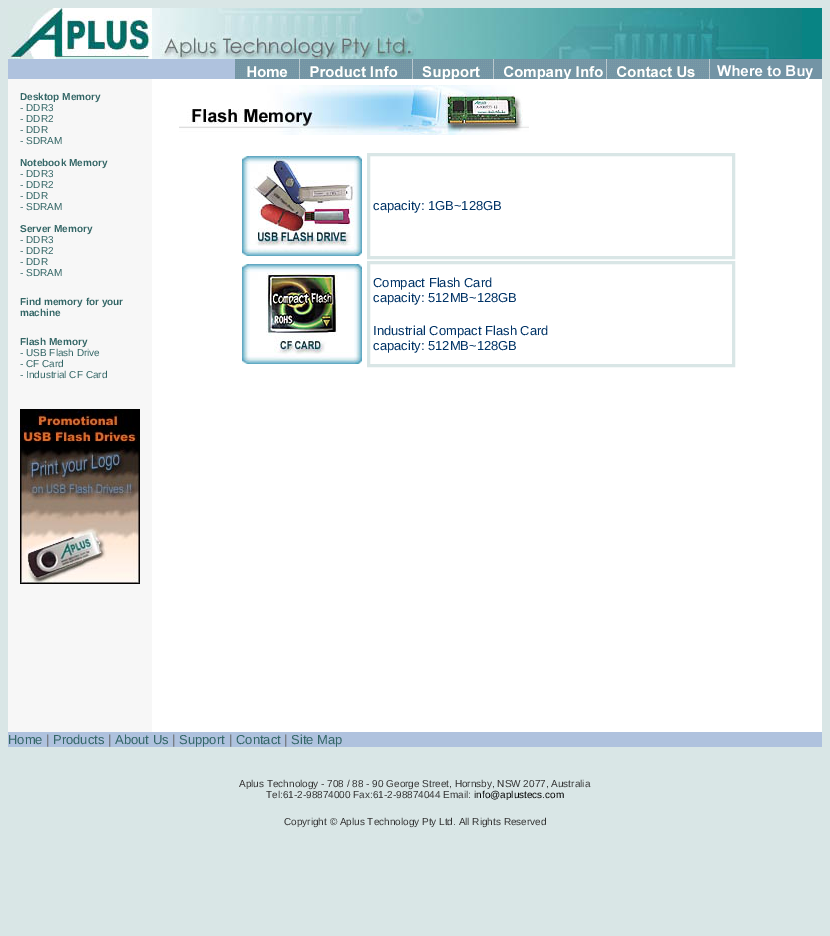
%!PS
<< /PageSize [830 936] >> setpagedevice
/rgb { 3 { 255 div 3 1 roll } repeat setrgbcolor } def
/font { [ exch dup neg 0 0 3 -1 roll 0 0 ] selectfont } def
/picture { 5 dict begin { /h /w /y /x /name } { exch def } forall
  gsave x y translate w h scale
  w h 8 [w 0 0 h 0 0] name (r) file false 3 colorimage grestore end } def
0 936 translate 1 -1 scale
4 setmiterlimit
217 230 230 rgb
0 0 830 936 rectfill
255 255 255 rgb
152 79 670 653 rectfill
(img/1.rgb) 8 8 144 51 picture
8 132 132 rgb
802 8 20 51 rectfill
(img/2.rgb) 152 8 650 51 picture
175 194 222 rgb
8 59 227 20 rectfill
(img/3.rgb) 235 59 64 20 picture
(img/4.rgb) 299 59 113 20 picture
(img/5.rgb) 412 59 81 20 picture
(img/6.rgb) 493 59 113 20 picture
(img/7.rgb) 606 59 103 20 picture
(img/8.rgb) 709 59 113 20 picture
247 247 247 rgb
8 79 144 653 rectfill
(img/9.rgb) 20 409 120 175 picture
(img/10.rgb) 179 85 350 50 picture
(img/11.rgb) 242 156 120 100 picture
217 230 230 rgb
3 setlinewidth
368.5 154.5 365 103 rectstroke
(img/12.rgb) 242 264 120 100 picture
368.5 262.5 365 103 rectstroke
175 194 222 rgb
8 732 814 15 rectfill
/LiberationSans-Bold 10 font
51 102 102 rgb
20 100 moveto (Desktop Memory) show
/LiberationSans-Regular 10 font
[
  [(- DDR3) 20 111]
  [(- DDR2) 20 122]
  [(- DDR) 20 133]
  [(- SDRAM) 20 144]
] { aload pop moveto show } forall
/LiberationSans-Bold 10 font
20 166 moveto (Notebook Memory) show
/LiberationSans-Regular 10 font
[
  [(- DDR3) 20 177]
  [(- DDR2) 20 188]
  [(- DDR) 20 199]
  [(- SDRAM) 20 210]
] { aload pop moveto show } forall
/LiberationSans-Bold 10 font
20 232 moveto (Server Memory) show
/LiberationSans-Regular 10 font
[
  [(- DDR3) 20 243]
  [(- DDR2) 20 254]
  [(- DDR) 20 265]
  [(- SDRAM) 20 276]
] { aload pop moveto show } forall
/LiberationSans-Bold 10 font
[
  [(Find memory for your) 20 305]
  [(machine) 20 316]
  [(Flash Memory) 20 345]
] { aload pop moveto show } forall
/LiberationSans-Regular 10 font
[
  [(- USB Flash Drive) 20 356]
  [(- CF Card) 20 367]
  [(- Industrial CF Card) 20 378]
] { aload pop moveto show } forall
/LiberationSans-Regular 13 font
0 51 102 rgb
[
  [(capacity: 1GB~128GB) 373 210]
  [(Compact Flash Card) 373 287]
  [(capacity: 512MB~128GB) 373 302]
  [(Industrial Compact Flash Card) 373 335]
  [(capacity: 512MB~128GB) 373 350]
] { aload pop moveto show } forall
51 102 102 rgb
8 744 moveto (Home) show
102 102 102 rgb
46 744 moveto (|) show
51 102 102 rgb
53 744 moveto (Products) show
102 102 102 rgb
108 744 moveto (|) show
51 102 102 rgb
115 744 moveto (About Us) show
102 102 102 rgb
172 744 moveto (|) show
51 102 102 rgb
179 744 moveto (Support) show
102 102 102 rgb
229 744 moveto (|) show
51 102 102 rgb
236 744 moveto (Contact) show
102 102 102 rgb
284 744 moveto (|) show
51 102 102 rgb
291 744 moveto (Site Map) show
/LiberationSans-Regular 10 font
51 51 51 rgb
239 787 moveto (Aplus Technology - 708 / 88 - 90 George Street, Hornsby, NSW 2077, Australia) show
266 798 moveto (Tel:61-2-98874000 Fax:61-2-98874044 Email:) show
0 0 0 rgb
474 798 moveto (info@aplustecs.com) show
51 51 51 rgb
284 825 moveto (Copyright © Aplus Technology Pty Ltd. All Rights Reserved) show
showpage
